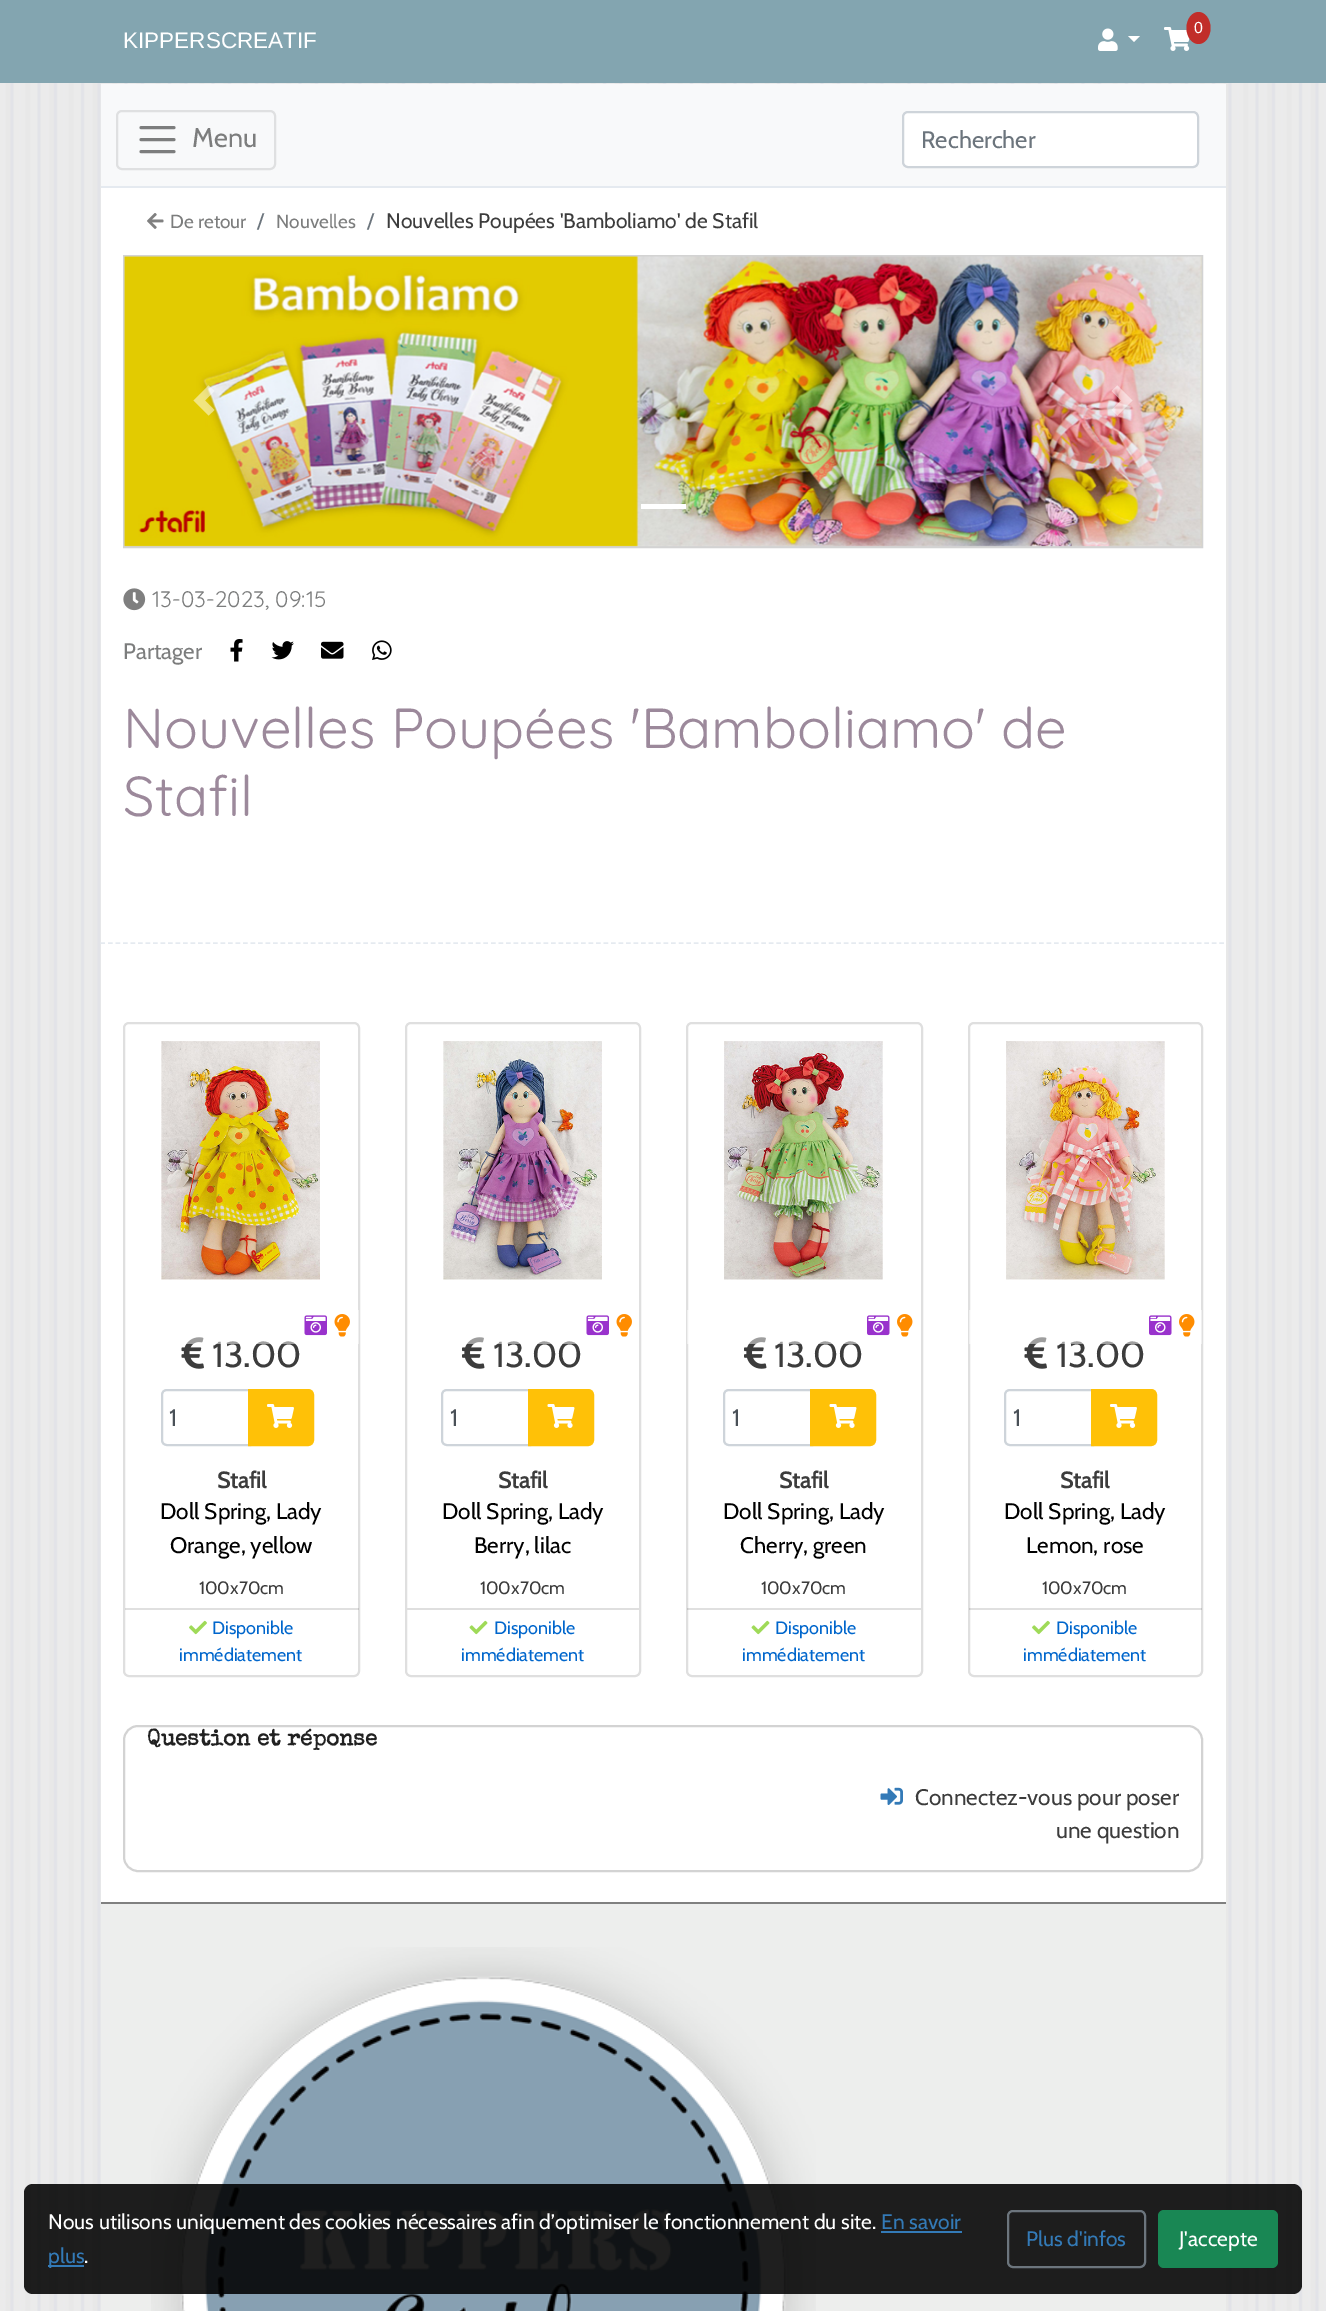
%!PS
<< /PageSize [1326 2311] /PageUsesTransparency true >> setpagedevice
/rgb { 3 { 255 div 3 1 roll } repeat setrgbcolor } def
/font { [ exch dup neg 0 0 3 -1 roll 0 0 ] selectfont } def
/alpha { dup .setfillconstantalpha .setstrokeconstantalpha } def
/roundrect { 5 dict begin { /r /h /w /y /x } { exch def } forall
  x r add y moveto x w add y 2 copy h add r arct x w add y h add x 1 index r arct
  x y h add x y r arct x y 2 copy exch w add exch r arct closepath end } def
/picture { 5 dict begin { /h /w /y /x /name } { exch def } forall
  gsave x y translate w h scale
  w h 8 [w 0 0 h 0 0] name (r) file false 3 colorimage grestore end } def
0 .pushpdf14devicefilter
0 2311 translate 1 -1 scale
4 setmiterlimit
255 255 255 rgb
0 0 1326 2311 rectfill
(img/1.rgb) 0 83 1326 2228 picture
131 165 176 rgb
0 0 1326 83 rectfill
(img/2.rgb) 1098 28 20 23 picture
255 255 255 rgb
1128 36 moveto 1140 36 lineto 1134 42 lineto closepath fill
(img/3.rgb) 1164 27 26 24 picture
193 46 42 rgb
1198.5 12 moveto 1205 12 1210.5 19 1210.5 28 curveto 1210.5 37 1205 44 1198.5 44 curveto 1192 44 1186.5 37 1186.5 28 curveto 1186.5 19 1192 12 1198.5 12 curveto closepath fill
229 234 240 rgb
101 186 1125 2 rectfill
248 249 250 rgb
101 84 1125 102 rectfill
223 224 225 rgb
2 setlinewidth
117 111 158 58 5 roundrect stroke
124 125 125 rgb
3 setlinewidth
1 setlinecap
141 127.5 moveto 174 127.5 lineto 141 139.5 moveto 174 139.5 lineto 141 151.5 moveto 174 151.5 lineto stroke
255 255 255 rgb
903 112 295 55 5 roundrect gsave fill grestore
206 212 218 rgb
2 setlinewidth
0 setlinecap
stroke
255 255 255 rgb
101 188 1125 1714 rectfill
(img/4.rgb) 147 213 17 16 picture
211 211 211 rgb
124 256 1078 291 rectstroke
(img/5.rgb) 124 256 1078 291 picture
0.5 alpha
255 255 255 rgb
208.5 385.5 moveto 193.5 400.5 lineto 208.5 415.5 lineto 214.5 410 lineto 205 400.5 lineto 214.5 391 lineto closepath fill
1117.5 385.5 moveto 1111.5 391 lineto 1121 400.5 lineto 1111.5 410 lineto 1117.5 415.5 lineto 1132.5 400.5 lineto closepath fill
1 alpha
641 504 45 5 rectfill
(img/6.rgb) 123 588 23 23 picture
(img/7.rgb) 230 639 13 23 picture
(img/8.rgb) 271 641 23 19 picture
(img/9.rgb) 321 641 23 18 picture
(img/10.rgb) 372 640 20 20 picture
229 234 240 rgb
1.5 setlinewidth
[4.5 3.01] 0 setdash
100.5 943 moveto 1225.5 943 lineto stroke
223 223 223 rgb
2 setlinewidth
[] 0 setdash
124 1023 235 653 5 roundrect stroke
(img/11.rgb) 161 1041 159 239 picture
(img/14.rgb) 181 1337 23 32 picture
206 212 218 rgb
167 1390 moveto 250 1390 lineto 250 1445 lineto 167 1445 lineto 164 1445 162 1443 162 1440 curveto 162 1395 lineto 162 1392 164 1390 167 1390 curveto closepath stroke
255 193 7 rgb
249 1390 moveto 308 1390 lineto 311 1390 313 1392 313 1395 curveto 313 1440 lineto 313 1443 311 1445 308 1445 curveto 249 1445 lineto closepath gsave fill grestore
stroke
(img/15.rgb) 267 1404 27 24 picture
0.12 alpha
0 0 0 rgb
125 1608 234 2 rectfill
1 alpha
(img/16.rgb) 189 1620 18 15 picture
223 223 223 rgb
406 1023 234 653 5 roundrect stroke
(img/17.rgb) 443 1041 159 239 picture
(img/12.rgb) 586 1315 23 21 picture
(img/13.rgb) 616 1314 16 23 picture
(img/18.rgb) 462 1337 23 32 picture
206 212 218 rgb
447 1390 moveto 530 1390 lineto 530 1445 lineto 447 1445 lineto 444 1445 442 1443 442 1440 curveto 442 1395 lineto 442 1392 444 1390 447 1390 curveto closepath stroke
255 193 7 rgb
529 1390 moveto 588 1390 lineto 591 1390 593 1392 593 1395 curveto 593 1440 lineto 593 1443 591 1445 588 1445 curveto 529 1445 lineto closepath gsave fill grestore
stroke
(img/19.rgb) 547 1404 28 24 picture
223 223 223 rgb
407 1608 232 2 rectfill
(img/20.rgb) 469 1620 19 15 picture
687 1023 235 653 5 roundrect stroke
(img/21.rgb) 724 1041 159 239 picture
(img/22.rgb) 867 1315 23 21 picture
(img/23.rgb) 897 1314 16 23 picture
(img/18.rgb) 744 1337 23 32 picture
206 212 218 rgb
729 1390 moveto 812 1390 lineto 812 1445 lineto 729 1445 lineto 726 1445 724 1443 724 1440 curveto 724 1395 lineto 724 1392 726 1390 729 1390 curveto closepath stroke
255 193 7 rgb
811 1390 moveto 870 1390 lineto 873 1390 875 1392 875 1395 curveto 875 1440 lineto 875 1443 873 1445 870 1445 curveto 811 1445 lineto closepath gsave fill grestore
stroke
(img/19.rgb) 829 1404 28 24 picture
0.12 alpha
0 0 0 rgb
687 1608 234 2 rectfill
1 alpha
(img/20.rgb) 751 1620 19 15 picture
223 223 223 rgb
969 1023 233 653 5 roundrect stroke
(img/24.rgb) 1006 1041 159 239 picture
(img/14.rgb) 1024 1337 23 32 picture
206 212 218 rgb
1010 1390 moveto 1093 1390 lineto 1093 1445 lineto 1010 1445 lineto 1007 1445 1005 1443 1005 1440 curveto 1005 1395 lineto 1005 1392 1007 1390 1010 1390 curveto closepath stroke
255 193 7 rgb
1092 1390 moveto 1151 1390 lineto 1154 1390 1156 1392 1156 1395 curveto 1156 1440 lineto 1156 1443 1154 1445 1151 1445 curveto 1092 1445 lineto closepath gsave fill grestore
stroke
(img/15.rgb) 1110 1404 27 24 picture
0.12 alpha
0 0 0 rgb
969 1608 233 2 rectfill
1 alpha
(img/16.rgb) 1032 1620 18 15 picture
211 211 211 rgb
124 1726 1078 145 14 roundrect stroke
(img/25.rgb) 880 1787 23 18 picture
237 238 237 rgb
101 1904 1125 407 rectfill
128 128 128 rgb
101 1902 1125 2 rectfill
(img/26.rgb) 151 1947 665 364 picture
0.88 alpha
0 0 0 rgb
24 2184 1278 110 9 roundrect fill
1 alpha
51 122 183 rgb
881 2231 81 2 rectfill
48 2265 36 2 rectfill
108 117 125 rgb
1008 2211 137 56 5 roundrect stroke
25 135 84 rgb
1158 2210 120 58 6 roundrect fill
/LiberationSans-Regular 16 font
255 255 255 rgb
1194 33 moveto (0) show
/LiberationSans-Regular 22.5 font
123 48 moveto (KIPPERSCREATIF) show
/Cabin-Regular 27 font
124 125 125 rgb
192 147 moveto (Menu) show
/Cabin-Regular 24 font
108 117 125 rgb
921 148 moveto (Rechercher) show
/Cabin-Regular 19 font
124 125 125 rgb
170 228 moveto (De retour) show
/Cabin-Regular 21 font
108 117 125 rgb
257 228 moveto (/) show
/Cabin-Regular 19 font
124 125 125 rgb
276 228 moveto (Nouvelles) show
/Cabin-Regular 21 font
108 117 125 rgb
367 228 moveto (/) show
60 60 60 rgb
386 228 moveto (Nouvelles Poupées 'Bamboliamo' de Stafil) show
/Quicksand-Light 22.5 font
124 125 125 rgb
152 607 moveto (13-03-2023, 09:15) show
/Cabin-Regular 22.5 font
123 659 moveto (Partager) show
/Quicksand-Light 56.25 font
156 137 155 rgb
123 748 moveto (Nouvelles Poupées 'Bamboliamo' de) show
123 816 moveto (Stafil) show
/Cabin-Regular 36 font
60 60 60 rgb
212 1367 moveto (13.00) show
0.5 alpha
255 255 255 rgb
186 1310 173 34 rectfill
1 alpha
(img/13.rgb) 334 1314 16 23 picture
(img/12.rgb) 304 1315 23 21 picture
/Cabin-Regular 24 font
73 80 87 rgb
169 1426 moveto (1) show
/Cabin-Bold 22.5 font
60 60 60 rgb
217 1488 moveto (Stafil) show
/Cabin-Regular 22.5 font
0 0 0 rgb
160 1519 moveto (Doll Spring, Lady) show
170 1553 moveto (Orange, yellow) show
/Cabin-Regular 18 font
60 60 60 rgb
199 1594 moveto (100x70cm) show
0 102 204 rgb
212 1634 moveto (Disponible) show
179 1661 moveto (immédiatement) show
/Cabin-Regular 36 font
60 60 60 rgb
493 1367 moveto (13.00) show
0.5 alpha
255 255 255 rgb
467 1337 110 7 rectfill
/Cabin-Regular 24 font
1 alpha
73 80 87 rgb
450 1426 moveto (1) show
/Cabin-Bold 22.5 font
60 60 60 rgb
498 1488 moveto (Stafil) show
/Cabin-Regular 22.5 font
0 0 0 rgb
442 1519 moveto (Doll Spring, Lady) show
474 1553 moveto (Berry, lilac) show
/Cabin-Regular 18 font
60 60 60 rgb
480 1594 moveto (100x70cm) show
0 102 204 rgb
494 1634 moveto (Disponible) show
461 1661 moveto (immédiatement) show
/Cabin-Regular 36 font
60 60 60 rgb
774 1367 moveto (13.00) show
0.5 alpha
255 255 255 rgb
687 1310 171 34 rectfill
/Cabin-Regular 24 font
1 alpha
73 80 87 rgb
732 1426 moveto (1) show
/Cabin-Bold 22.5 font
60 60 60 rgb
779 1488 moveto (Stafil) show
/Cabin-Regular 22.5 font
0 0 0 rgb
723 1519 moveto (Doll Spring, Lady) show
740 1553 moveto (Cherry, green) show
/Cabin-Regular 18 font
60 60 60 rgb
761 1594 moveto (100x70cm) show
0 102 204 rgb
775 1634 moveto (Disponible) show
742 1661 moveto (immédiatement) show
/Cabin-Regular 36 font
60 60 60 rgb
1056 1367 moveto (13.00) show
0.5 alpha
255 255 255 rgb
969 1310 233 34 rectfill
1 alpha
(img/23.rgb) 1179 1314 16 23 picture
(img/22.rgb) 1149 1315 23 21 picture
/Cabin-Regular 24 font
73 80 87 rgb
1013 1426 moveto (1) show
/Cabin-Bold 22.5 font
60 60 60 rgb
1060 1488 moveto (Stafil) show
/Cabin-Regular 22.5 font
0 0 0 rgb
1004 1519 moveto (Doll Spring, Lady) show
1026 1553 moveto (Lemon, rose) show
/Cabin-Regular 18 font
60 60 60 rgb
1042 1594 moveto (100x70cm) show
0 102 204 rgb
1056 1634 moveto (Disponible) show
1023 1661 moveto (immédiatement) show
/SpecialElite-Bold 22.5 font
33 33 33 rgb
147 1745 moveto (Question et réponse) show
/Cabin-Regular 22.5 font
60 60 60 rgb
915 1805 moveto (Connectez-vous pour poser) show
1056 1838 moveto (une question) show
/Cabin-Regular 21 font
255 255 255 rgb
48 2229 moveto (Nous utilisons uniquement des cookies nécessaires afin d’optimiser le fonctionnement du site.) show
51 122 183 rgb
881 2229 moveto (En savoir) show
48 2263 moveto (plus) show
255 255 255 rgb
84 2263 moveto (.) show
51 122 183 rgb
1026 2246 moveto (Plus d'infos) show
255 255 255 rgb
1179 2246 moveto (J'accepte) show
.poppdf14devicefilter showpage
